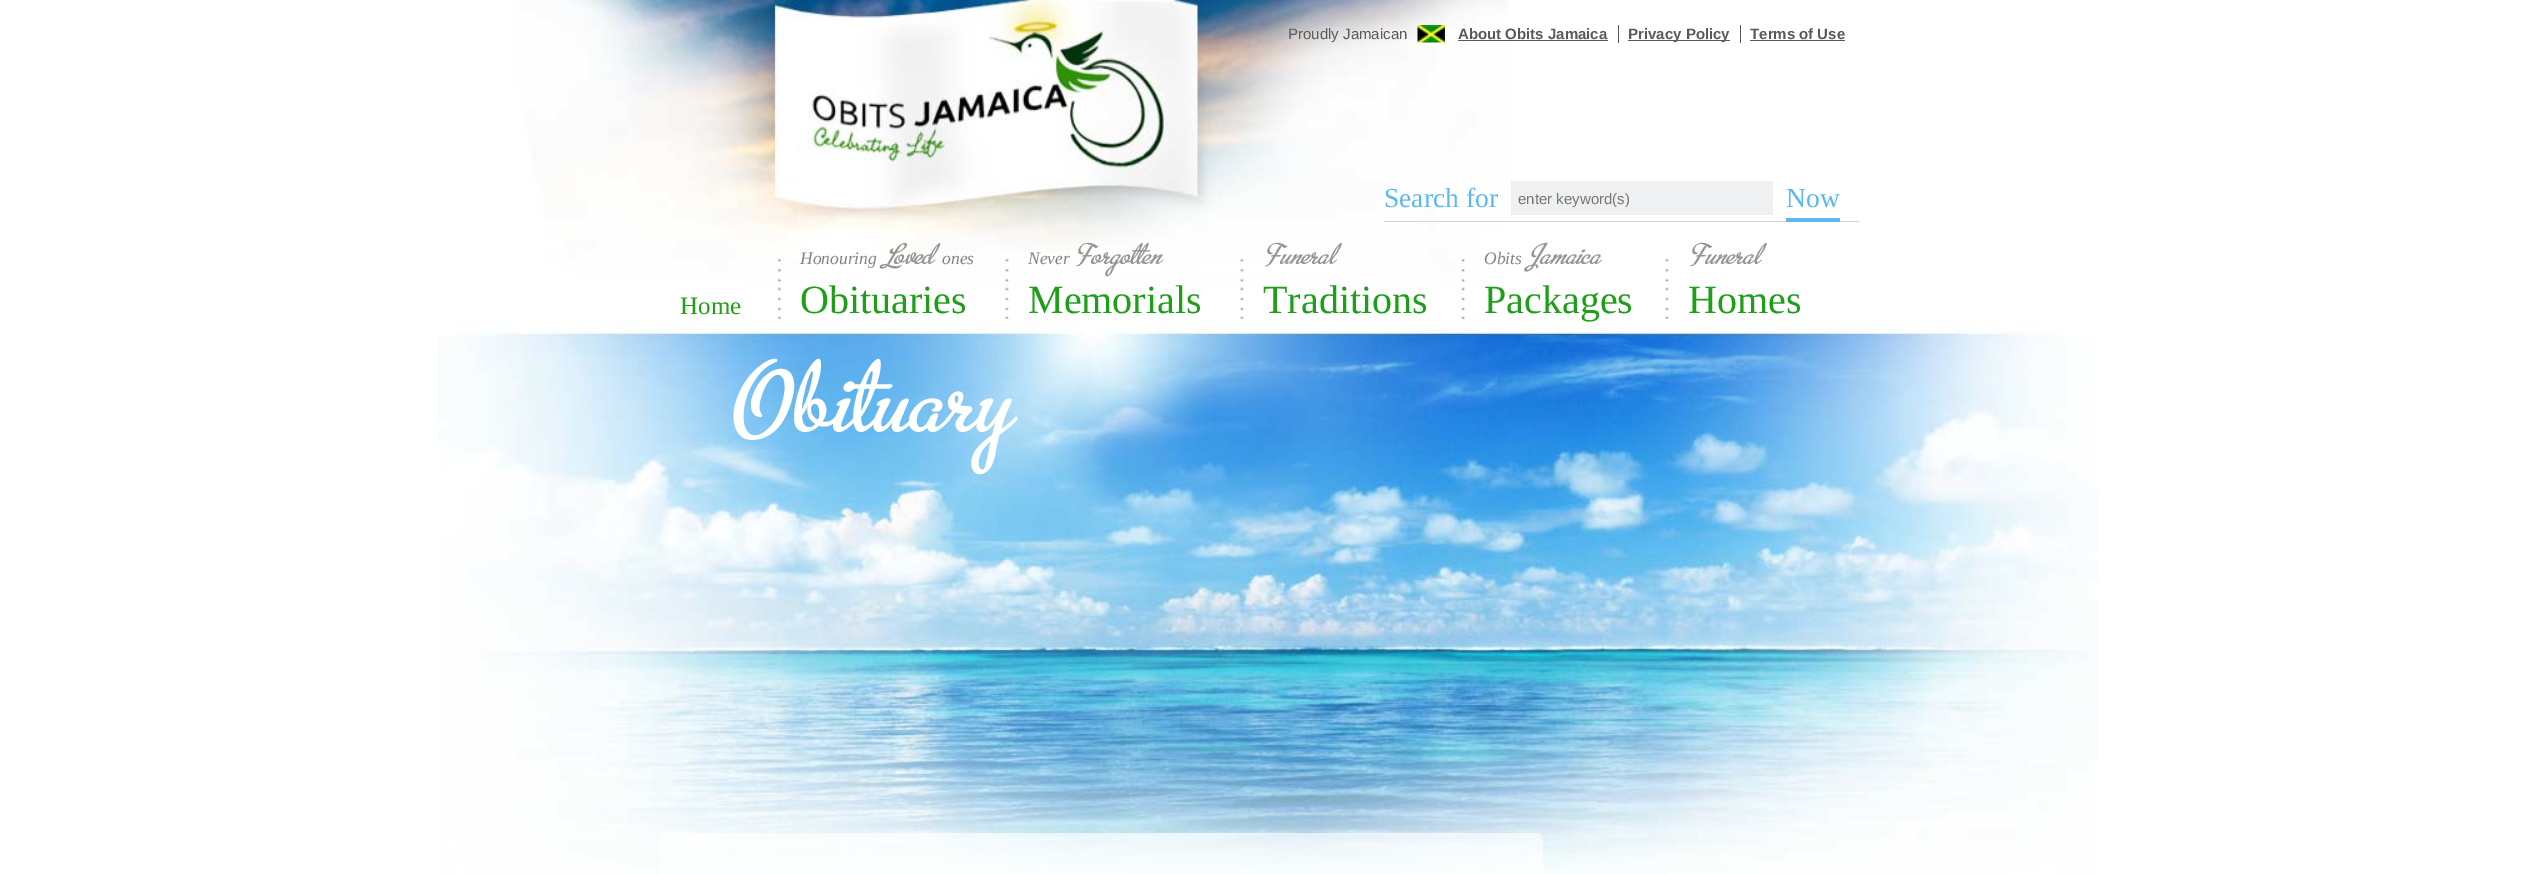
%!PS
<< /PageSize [2534 874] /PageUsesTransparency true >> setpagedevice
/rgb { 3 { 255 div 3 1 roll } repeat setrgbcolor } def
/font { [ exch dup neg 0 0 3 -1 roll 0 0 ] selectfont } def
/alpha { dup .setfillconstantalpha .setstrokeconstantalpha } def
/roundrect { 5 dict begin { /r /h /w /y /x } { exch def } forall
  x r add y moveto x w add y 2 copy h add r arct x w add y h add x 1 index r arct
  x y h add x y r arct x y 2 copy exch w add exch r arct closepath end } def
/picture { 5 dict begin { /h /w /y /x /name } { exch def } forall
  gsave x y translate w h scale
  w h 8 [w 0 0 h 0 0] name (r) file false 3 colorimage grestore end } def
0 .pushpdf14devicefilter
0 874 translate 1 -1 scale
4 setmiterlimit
255 255 255 rgb
0 0 2534 874 rectfill
(img/1.rgb) 438 0 1660 874 picture
(img/2.rgb) 1417 25 28 18 picture
[
  [1618 25 1 18 88 89 91]
  [1458 40 150 1 88 89 91]
  [1740 25 1 18 88 89 91]
  [1628 40 102 1 88 89 91]
  [1750 40 95 1 88 89 91]
  [1384 221 475 1 209 211 212]
  [1511 181 262 34 239 240 241]
  [1786 218 54 4 91 184 238]
] { aload pop rgb rectfill } forall
(img/3.rgb) 777 258 5 61 picture
(img/4.rgb) 1005 258 4 61 picture
(img/5.rgb) 1240 258 4 61 picture
(img/6.rgb) 1461 258 4 61 picture
(img/7.rgb) 1665 258 4 61 picture
0.65 alpha
255 255 255 rgb
661 833 882 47 6 roundrect fill
/LiberationSans-Regular 15 font
1 alpha
88 89 91 rgb
1288 39 moveto (Proudly Jamaican) show
/LiberationSans-Bold 15 font
[
  [(About Obits Jamaica) 1458 39]
  [(Privacy Policy) 1628 39]
  [(Terms of Use) 1750 39]
] { aload pop moveto show } forall
/LiberationSerif-Regular 27.5 font
91 184 238 rgb
1384 207 moveto (Search for) show
/LiberationSans-Regular 15 font
117 117 117 rgb
1518 204 moveto (enter keyword\(s\)) show
/LiberationSerif-Regular 27.5 font
91 184 238 rgb
1786 207 moveto (Now) show
/LiberationSerif-Regular 25 font
31 158 25 rgb
680 314 moveto (Home) show
/LiberationSerif-Italic 17.5 font
128 130 133 rgb
800 264 moveto (Honouring) show
/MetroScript-Italic 32.5 font
147 149 152 rgb
885 264 moveto (Loved) show
/LiberationSerif-Italic 17.5 font
128 130 133 rgb
942 264 moveto (ones) show
/LiberationSerif-Regular 40 font
31 158 25 rgb
800 313 moveto (Obituaries) show
/LiberationSerif-Italic 17.5 font
128 130 133 rgb
1028 264 moveto (Never) show
/MetroScript-Italic 32.5 font
147 149 152 rgb
1077 264 moveto (Forgotten) show
/LiberationSerif-Regular 40 font
31 158 25 rgb
1028 313 moveto (Memorials) show
/MetroScript-Italic 32.5 font
147 149 152 rgb
1266 264 moveto (Funeral) show
/LiberationSerif-Regular 40 font
31 158 25 rgb
1263 313 moveto (Traditions) show
/LiberationSerif-Italic 17.5 font
128 130 133 rgb
1484 264 moveto (Obits) show
/MetroScript-Italic 32.5 font
147 149 152 rgb
1530 264 moveto (Jamaica) show
/LiberationSerif-Regular 40 font
31 158 25 rgb
1484 313 moveto (Packages) show
/MetroScript-Italic 32.5 font
147 149 152 rgb
1691 264 moveto (Funeral) show
/LiberationSerif-Regular 40 font
31 158 25 rgb
1688 313 moveto (Homes) show
/MetroScript-Regular 112.5 font
255 255 255 rgb
736 432 moveto (Obituary) show
.poppdf14devicefilter showpage
